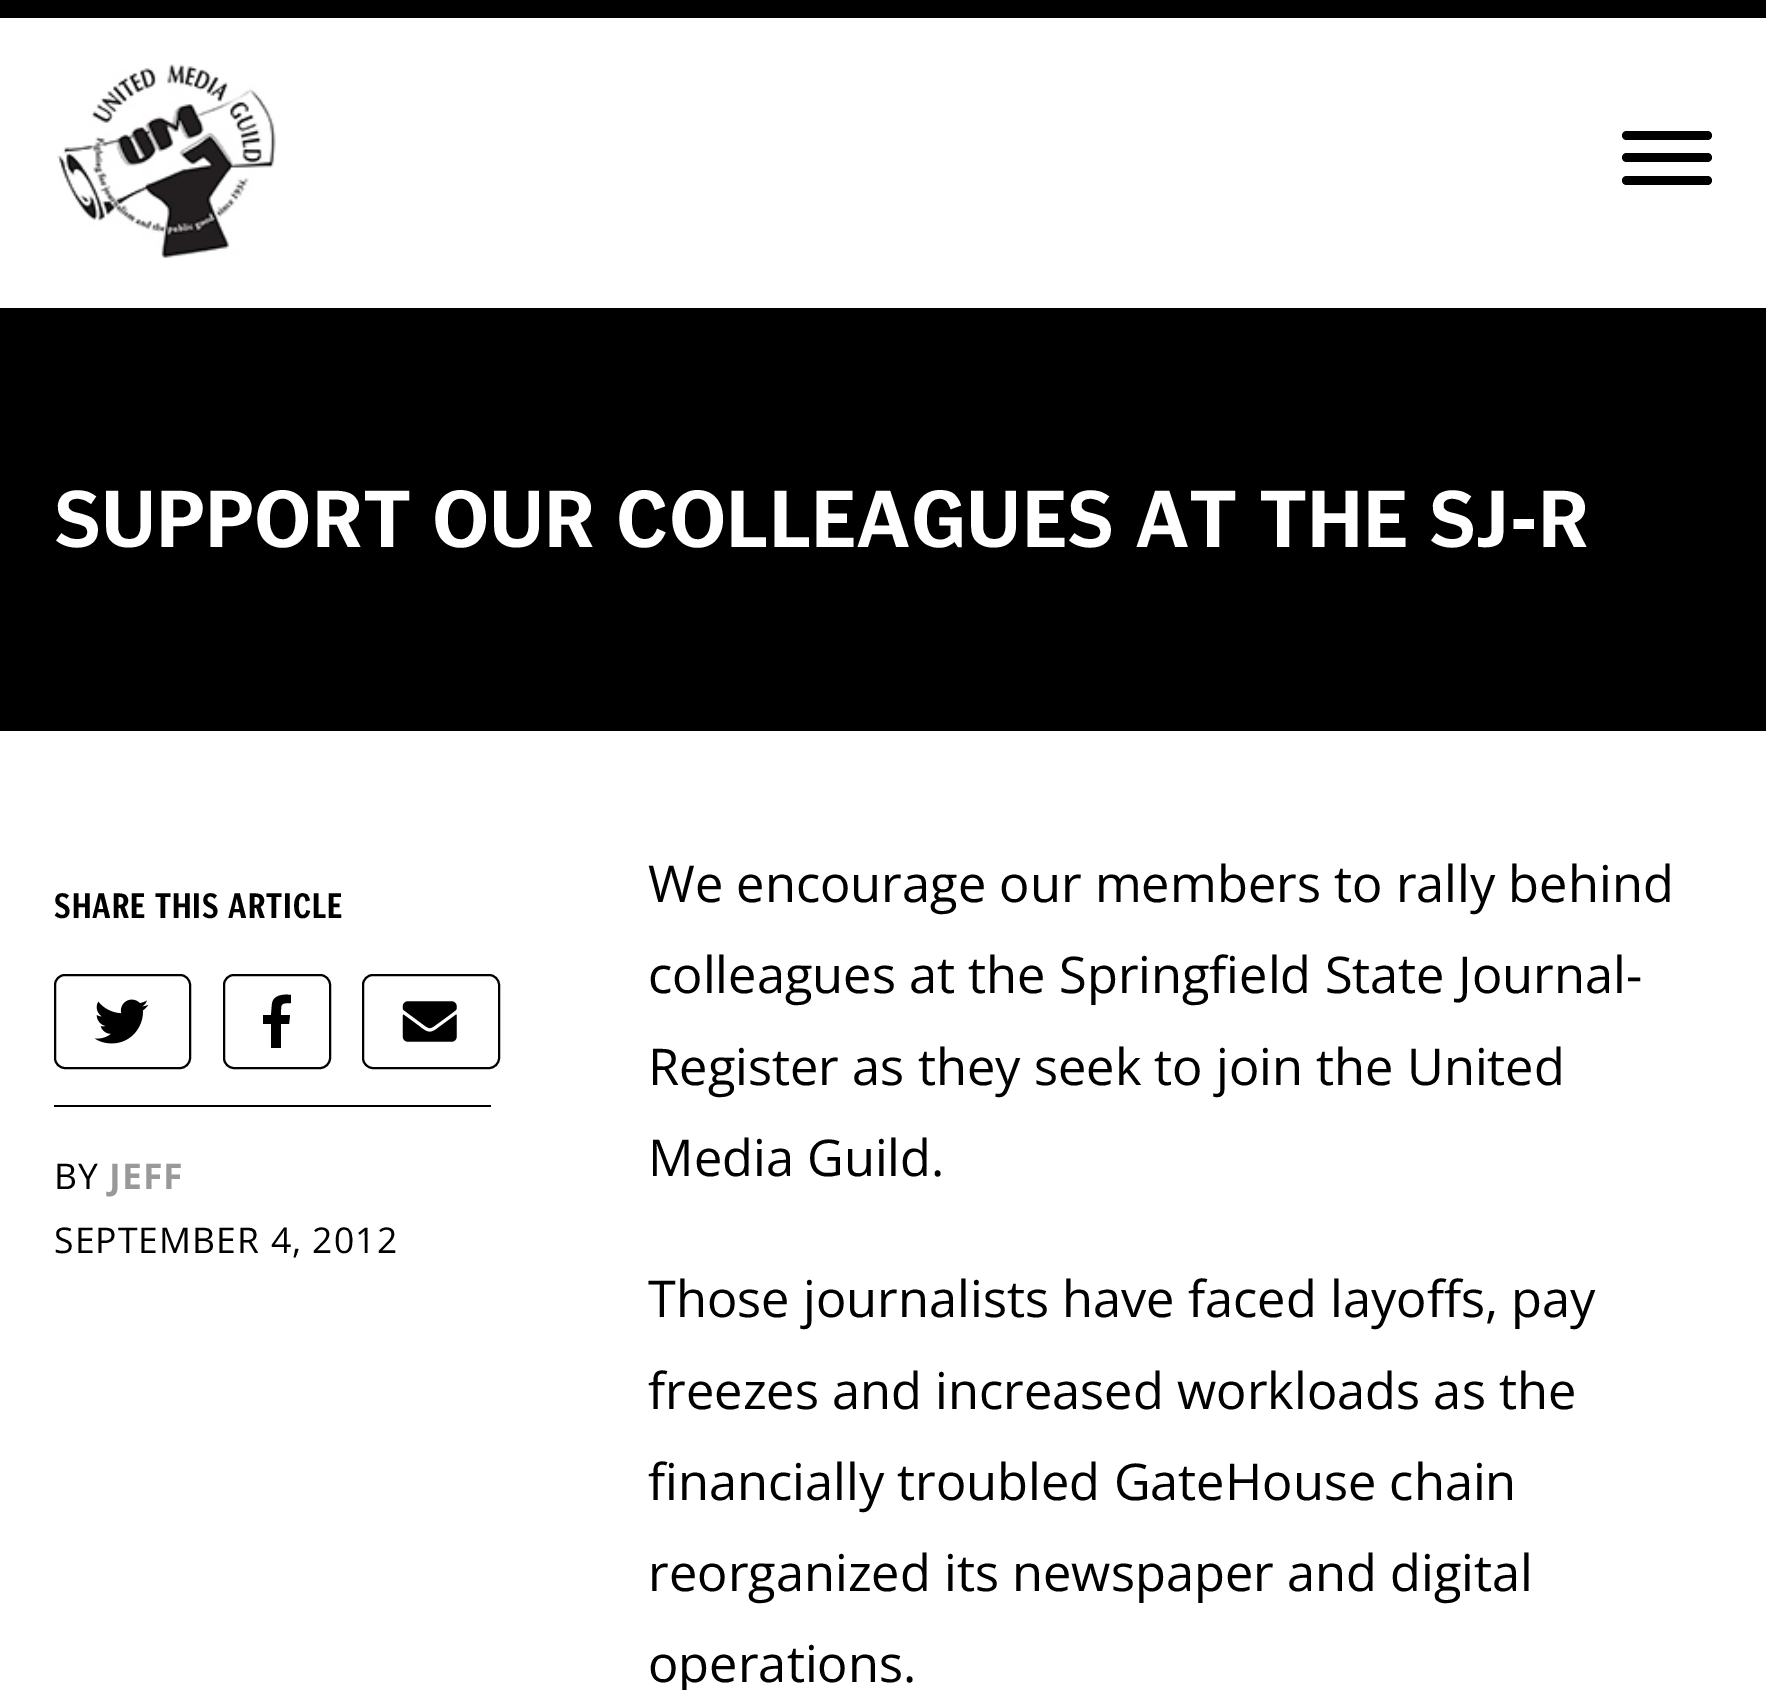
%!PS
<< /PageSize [1766 1690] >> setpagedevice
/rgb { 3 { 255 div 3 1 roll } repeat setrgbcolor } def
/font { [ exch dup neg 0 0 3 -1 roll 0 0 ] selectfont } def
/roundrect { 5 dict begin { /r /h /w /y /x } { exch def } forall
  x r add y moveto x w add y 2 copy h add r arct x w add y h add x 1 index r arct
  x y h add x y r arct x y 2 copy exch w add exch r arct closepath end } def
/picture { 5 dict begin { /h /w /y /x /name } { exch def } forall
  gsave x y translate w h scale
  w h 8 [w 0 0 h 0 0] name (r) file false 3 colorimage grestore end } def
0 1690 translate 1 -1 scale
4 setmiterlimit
255 255 255 rgb
0 0 1766 1690 rectfill
0 0 0 rgb
0 0 1766 18 rectfill
(img/1.rgb) 57 64 219 194 picture
1622 153 90 9 4.5 roundrect fill
1622 131 90 9 4.5 roundrect fill
1622 176 90 9 4.5 roundrect fill
0 308 1766 423 rectfill
54 1105 437 2 rectfill
2 setlinewidth
55 975 135 93 10 roundrect stroke
(img/2.rgb) 94 999 55 45 picture
224 975 106 93 10 roundrect stroke
271 1048 moveto 271 1024 lineto 263 1024 lineto 263 1015 lineto 271 1015 lineto 272 1004 lineto 273 995 283 994 291 995 curveto 291 1003 lineto 280 1003 281 1004 281 1015 curveto 290 1015 lineto 289 1024 lineto 281 1024 lineto 281 1048 lineto closepath fill
363 975 136 93 10 roundrect stroke
(img/3.rgb) 402 1001 55 41 picture
/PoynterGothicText-Bold 81 font
255 255 255 rgb
54 547 moveto (SUPPORT OUR COLLEAGUES AT THE SJ-R) show
/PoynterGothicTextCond-Bold 35.5 font
0 0 0 rgb
54 918 moveto 1.1 0 (SHARE THIS ARTICLE) ashow
/OpenSans-Regular 35.5 font
54 1189 moveto 1.1 0 (BY) ashow
/OpenSans-Bold 35.5 font
153 153 153 rgb
109 1189 moveto 1.1 0 (JEFF) ashow
/OpenSans-Regular 35.5 font
0 0 0 rgb
54 1253 moveto 1.1 0 (SEPTEMBER 4, 2012) ashow
/OpenSans-Regular 50.6 font
[
  [(We encourage our members to rally behind) 648 902]
  [(colleagues at the Springfield State Journal-) 648 993]
  [(Register as they seek to join the United) 648 1085]
  [(Media Guild.) 648 1176]
  [(Those journalists have faced layoffs, pay) 648 1317]
  [(freezes and increased workloads as the) 648 1409]
  [(financially troubled GateHouse chain) 648 1500]
  [(reorganized its newspaper and digital) 648 1591]
  [(operations.) 648 1682]
] { aload pop moveto show } forall
showpage
